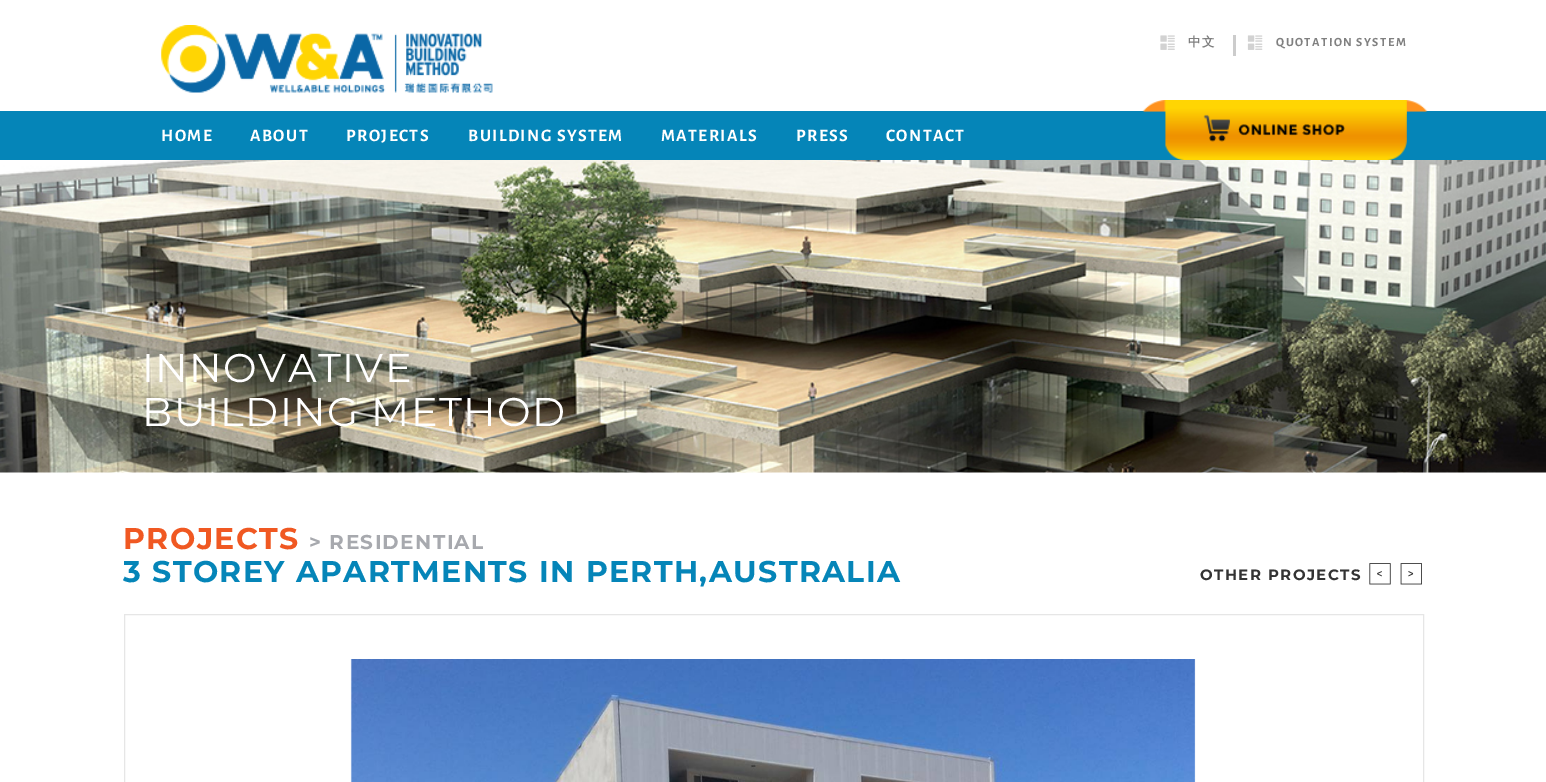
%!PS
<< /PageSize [1546 782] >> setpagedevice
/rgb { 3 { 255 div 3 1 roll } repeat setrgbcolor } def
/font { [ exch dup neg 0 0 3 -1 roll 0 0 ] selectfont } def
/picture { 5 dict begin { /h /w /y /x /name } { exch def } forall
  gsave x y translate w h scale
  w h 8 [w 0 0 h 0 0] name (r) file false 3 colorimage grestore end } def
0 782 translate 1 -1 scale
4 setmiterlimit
255 255 255 rgb
0 0 1546 782 rectfill
(img/1.rgb) 161 25 332 68 picture
(img/2.rgb) 1160 35 15 15 picture
204 204 204 rgb
1233 35 3 21 rectfill
(img/3.rgb) 1247 35 16 15 picture
5 133 184 rgb
0 111 1546 49 rectfill
(img/4.rgb) 1142 100 286 60 picture
(img/5.rgb) 0 160 1546 313 picture
(img/6.rgb) 1369 563 22 22 picture
(img/7.rgb) 1400 563 22 22 picture
230 230 230 rgb
124.5 614.5 1299 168 rectstroke
(img/8.rgb) 350 659 846 123 picture
/WenQuanYiZenHei-Bold 12.5 font
128 128 128 rgb
1188 46 moveto 1.4 0 (中文) ashow
/AlegreyaSans-Bold 12.5 font
1276 46 moveto 1.4 0 (QUOTATION SYSTEM) ashow
/AlegreyaSans-Bold 17.5 font
255 255 255 rgb
161 141 moveto 1.4 0 (HOME) ashow
250 141 moveto 1.4 0 (ABOUT) ashow
346 141 moveto 1.4 0 (PROJECTS) ashow
468 141 moveto 1.4 0 (BUILDING SYSTEM) ashow
661 141 moveto 1.4 0 (MATERIALS) ashow
796 141 moveto 1.4 0 (PRESS) ashow
886 141 moveto 1.4 0 (CONTACT) ashow
/Montserrat-Regular 40 font
142 382 moveto 1.4 0 (INNOVATIVE) ashow
142 426 moveto 1.4 0 (BUILDING METHOD) ashow
/Montserrat-Bold 30 font
240 88 34 rgb
123 549 moveto 1.4 0 (PROJECTS) ashow
/Montserrat-Bold 20 font
167 169 174 rgb
309 549 moveto 1.4 0 (> RESIDENTIAL) ashow
/Montserrat-Bold 30 font
5 133 184 rgb
123 582 moveto 1.4 0 (3 STOREY APARTMENTS IN PERTH,AUSTRALIA) ashow
/Montserrat-Bold 15 font
51 51 51 rgb
1200 580 moveto 1.4 0 (OTHER PROJECTS) ashow
showpage
